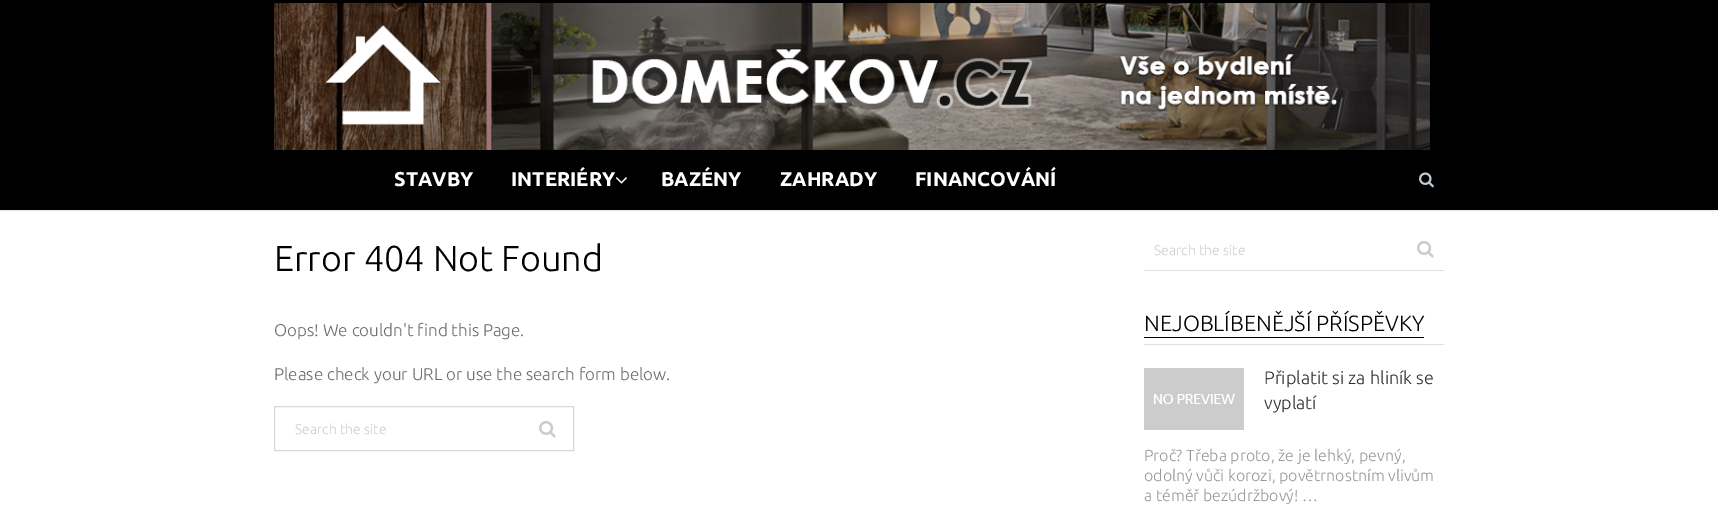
%!PS
<< /PageSize [1718 517] /PageUsesTransparency true >> setpagedevice
/rgb { 3 { 255 div 3 1 roll } repeat setrgbcolor } def
/font { [ exch dup neg 0 0 3 -1 roll 0 0 ] selectfont } def
/alpha { dup .setfillconstantalpha .setstrokeconstantalpha } def
/roundrect { 5 dict begin { /r /h /w /y /x } { exch def } forall
  x r add y moveto x w add y 2 copy h add r arct x w add y h add x 1 index r arct
  x y h add x y r arct x y 2 copy exch w add exch r arct closepath end } def
/shadow { 12 dict begin { /a /b /q /h /w /y /x } { exch def } forall gsave /was 0 def
  9 -2 -9 { dup b mul 4 div /e exch def 1 sub .425 mul 2.718 exch exp 1 add a .99 .min exch div /now exch def
    1 1 now sub 1 was sub div sub alpha /was now def
    w h .min e 2 mul add 0 gt { x e sub y e sub w e 2 mul add h e 2 mul add
      q e add b .6 mul add w h .min 2 div e add .min 0 .max roundrect fill } if } for grestore end } def
/picture { 5 dict begin { /h /w /y /x /name } { exch def } forall
  gsave x y translate w h scale
  w h 8 [w 0 0 h 0 0] name (r) file false 3 colorimage grestore end } def
0 .pushpdf14devicefilter
0 517 translate 1 -1 scale
4 setmiterlimit
255 255 255 rgb
0 0 1718 517 rectfill
0 0 0 rgb
0 1 1718 210 0 0.5 0.1 shadow
0 0 1718 210 rectfill
(img/1.rgb) 274 3 1156 147 picture
(img/3.rgb) 1419 172 15 16 picture
216 216 216 rgb
274.5 406.5 299 44 rectstroke
(img/4.rgb) 539 420 17 18 picture
224 224 224 rgb
1144 270 300 1 rectfill
(img/4.rgb) 1417 240 17 18 picture
1144 344 300 1 rectfill
0 0 0 rgb
1144 337 280 1 rectfill
(img/5.rgb) 1144 368 100 62 picture
/Ubuntu-Bold 20 font
255 255 255 rgb
394 186 moveto (STAVBY) show
511 186 moveto (INTERIÉRY) show
(img/2.rgb) 615 177 12 7 picture
[
  [(BAZÉNY) 661 186]
  [(ZAHRADY) 780 186]
  [(FINANCOVÁNÍ) 915 186]
] { aload pop moveto show } forall
/Ubuntu-Light 36 font
0 0 0 rgb
274 271 moveto (Error 404 Not Found) show
/Ubuntu-Light 17 font
109 109 109 rgb
274 336 moveto (Oops! We couldn't find this Page.) show
274 380 moveto (Please check your URL or use the search form below.) show
/Ubuntu-Light 14 font
204 204 204 rgb
295 434 moveto (Search the site) show
1154 255 moveto (Search the site) show
/Ubuntu-Light 22 font
0 0 0 rgb
1144 331 moveto (NEJOBLÍBENĚJŠÍ PŘÍSPĚVKY) show
/Ubuntu-Light 18 font
51 51 51 rgb
1264 384 moveto (Připlatit si za hliník se) show
1264 409 moveto (vyplatí) show
/Ubuntu-Light 16 font
153 153 153 rgb
[
  [(Proč? Třeba proto, že je lehký, pevný,) 1144 461]
  [(odolný vůči korozi, povětrnostním vlivům) 1144 481]
  [(a téměř bezúdržbový! …) 1144 501]
] { aload pop moveto show } forall
.poppdf14devicefilter showpage
